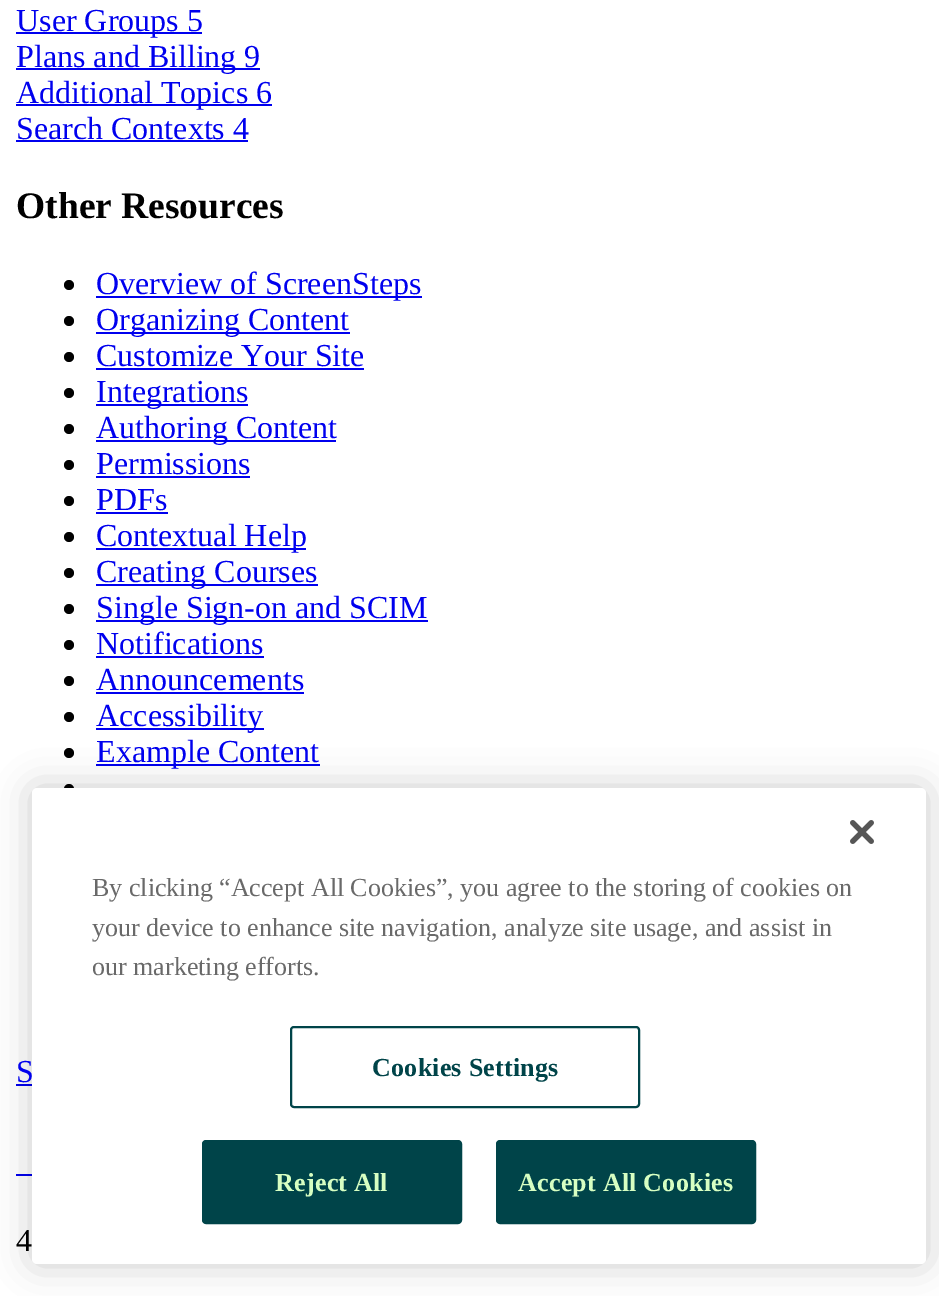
%!PS
<< /PageSize [939 1296] /PageUsesTransparency true >> setpagedevice
/rgb { 3 { 255 div 3 1 roll } repeat setrgbcolor } def
/font { [ exch dup neg 0 0 3 -1 roll 0 0 ] selectfont } def
/alpha { dup .setfillconstantalpha .setstrokeconstantalpha } def
/circle { newpath 0 360 arc closepath } def
/roundrect { 5 dict begin { /r /h /w /y /x } { exch def } forall
  x r add y moveto x w add y 2 copy h add r arct x w add y h add x 1 index r arct
  x y h add x y r arct x y 2 copy exch w add exch r arct closepath end } def
/shadow { 12 dict begin { /a /b /q /h /w /y /x } { exch def } forall gsave /was 0 def
  9 -2 -9 { dup b mul 4 div /e exch def 1 sub .425 mul 2.718 exch exp 1 add a .99 .min exch div /now exch def
    1 1 now sub 1 was sub div sub alpha /was now def
    w h .min e 2 mul add 0 gt { x e sub y e sub w e 2 mul add h e 2 mul add
      q e add b .6 mul add w h .min 2 div e add .min 0 .max roundrect fill } if } for grestore end } def
/picture { 5 dict begin { /h /w /y /x /name } { exch def } forall
  gsave x y translate w h scale
  w h 8 [w 0 0 h 0 0] name (r) file false 3 colorimage grestore end } def
0 .pushpdf14devicefilter
0 1296 translate 1 -1 scale
4 setmiterlimit
255 255 255 rgb
0 0 939 1296 rectfill
[
  [16 32 186 2 0 0 238]
  [16 68 244 2 0 0 238]
  [16 104 256 2 0 0 238]
  [16 140 232 2 0 0 238]
] { aload pop rgb rectfill } forall
0 0 0 rgb
69 285 5 circle fill
0 0 238 rgb
96 296 326 2 rectfill
0 0 0 rgb
69 321 5 circle fill
0 0 238 rgb
96 332 254 2 rectfill
0 0 0 rgb
69 357 5 circle fill
0 0 238 rgb
96 368 268 2 rectfill
0 0 0 rgb
69 393 5 circle fill
0 0 238 rgb
96 404 152 2 rectfill
0 0 0 rgb
69 429 5 circle fill
0 0 238 rgb
96 440 240 2 rectfill
0 0 0 rgb
69 465 5 circle fill
0 0 238 rgb
96 476 154 2 rectfill
0 0 0 rgb
69 501 5 circle fill
0 0 238 rgb
96 512 72 2 rectfill
0 0 0 rgb
69 537 5 circle fill
0 0 238 rgb
96 548 210 2 rectfill
0 0 0 rgb
69 573 5 circle fill
0 0 238 rgb
96 584 222 2 rectfill
0 0 0 rgb
69 609 5 circle fill
0 0 238 rgb
96 620 332 2 rectfill
0 0 0 rgb
69 645 5 circle fill
0 0 238 rgb
96 656 168 2 rectfill
0 0 0 rgb
69 681 5 circle fill
0 0 238 rgb
96 692 208 2 rectfill
0 0 0 rgb
69 717 5 circle fill
0 0 238 rgb
96 728 168 2 rectfill
0 0 0 rgb
69 753 5 circle fill
0 0 238 rgb
96 764 224 2 rectfill
0 0 0 rgb
69 789 5 circle fill
0 0 238 rgb
16 1084 16 2 rectfill
16 1174 16 2 rectfill
0 0 0 rgb
32 788 894 476 5 18 0.2 shadow
255 255 255 rgb
32 788 894 476 5 roundrect fill
(img/1.rgb) 850 820 24 24 picture
0 68 73 rgb
2 setlinewidth
291 1027 348 80 3 roundrect stroke
203 1141 258 82 3 roundrect gsave fill grestore
stroke
497 1141 258 82 3 roundrect gsave fill grestore
stroke
/LiberationSerif-Regular 32 font
0 0 238 rgb
[
  [(User Groups 5) 16 31]
  [(Plans and Billing 9) 16 67]
  [(Additional Topics 6) 16 103]
  [(Search Contexts 4) 16 139]
] { aload pop moveto show } forall
/LiberationSerif-Bold 37.5 font
0 0 0 rgb
16 218 moveto (Other Resources) show
/LiberationSerif-Regular 32 font
0 0 238 rgb
[
  [(Overview of ScreenSteps) 96 294]
  [(Organizing Content) 96 330]
  [(Customize Your Site) 96 366]
  [(Integrations) 96 402]
  [(Authoring Content) 96 438]
  [(Permissions) 96 474]
  [(PDFs) 96 510]
  [(Contextual Help) 96 546]
  [(Creating Courses) 96 582]
  [(Single Sign-on and SCIM) 96 618]
  [(Notifications) 96 654]
  [(Announcements) 96 690]
  [(Accessibility) 96 726]
  [(Example Content) 96 762]
  [(S) 16 1082]
] { aload pop moveto show } forall
0 0 0 rgb
16 1251 moveto (4) show
/LiberationSerif-Regular 26 font
105 105 105 rgb
[
  [(By clicking “Accept All Cookies”, you agree to the storing of cookies on) 92 896]
  [(your device to enhance site navigation, analyze site usage, and assist in) 92 936]
  [(our marketing efforts.) 92 975]
] { aload pop moveto show } forall
/LiberationSerif-Bold 26 font
0 68 73 rgb
372 1076 moveto 0.25 0 (Cookies Settings) ashow
215 255 194 rgb
275 1191 moveto 0.25 0 (Reject All) ashow
518 1191 moveto 0.25 0 (Accept All Cookies) ashow
.poppdf14devicefilter showpage
